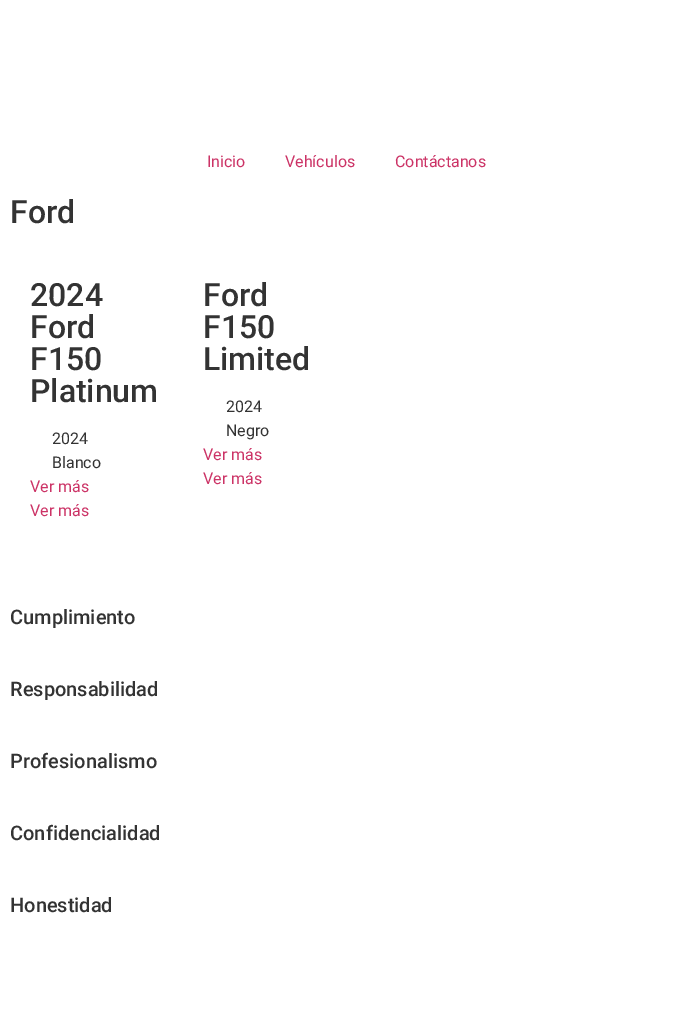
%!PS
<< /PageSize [693 1019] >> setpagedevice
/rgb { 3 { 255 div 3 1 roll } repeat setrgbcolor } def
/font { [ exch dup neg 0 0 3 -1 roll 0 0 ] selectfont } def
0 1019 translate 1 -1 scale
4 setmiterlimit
255 255 255 rgb
0 0 693 1019 rectfill
/Roboto-Regular 16 font
204 51 102 rgb
[
  [(Inicio) 207 167]
  [(Vehículos) 285 167]
  [(Contáctanos) 395 167]
] { aload pop moveto show } forall
/Roboto-Medium 32 font
51 51 51 rgb
[
  [(Ford) 10 223]
  [(2024) 30 306]
  [(Ford) 30 338]
  [(F150) 30 370]
  [(Platinum) 30 402]
] { aload pop moveto show } forall
/Roboto-Regular 16 font
52 444 moveto (2024) show
52 468 moveto (Blanco) show
204 51 102 rgb
30 492 moveto (Ver más) show
30 516 moveto (Ver más) show
/Roboto-Medium 32 font
51 51 51 rgb
[
  [(Ford) 203 306]
  [(F150) 203 338]
  [(Limited) 203 370]
] { aload pop moveto show } forall
/Roboto-Regular 16 font
226 412 moveto (2024) show
226 436 moveto (Negro) show
204 51 102 rgb
203 460 moveto (Ver más) show
203 484 moveto (Ver más) show
/Roboto-Medium 20 font
51 51 51 rgb
[
  [(Cumplimiento) 10 624]
  [(Responsabilidad) 10 696]
  [(Profesionalismo) 10 768]
  [(Confidencialidad) 10 840]
  [(Honestidad) 10 912]
] { aload pop moveto show } forall
showpage
